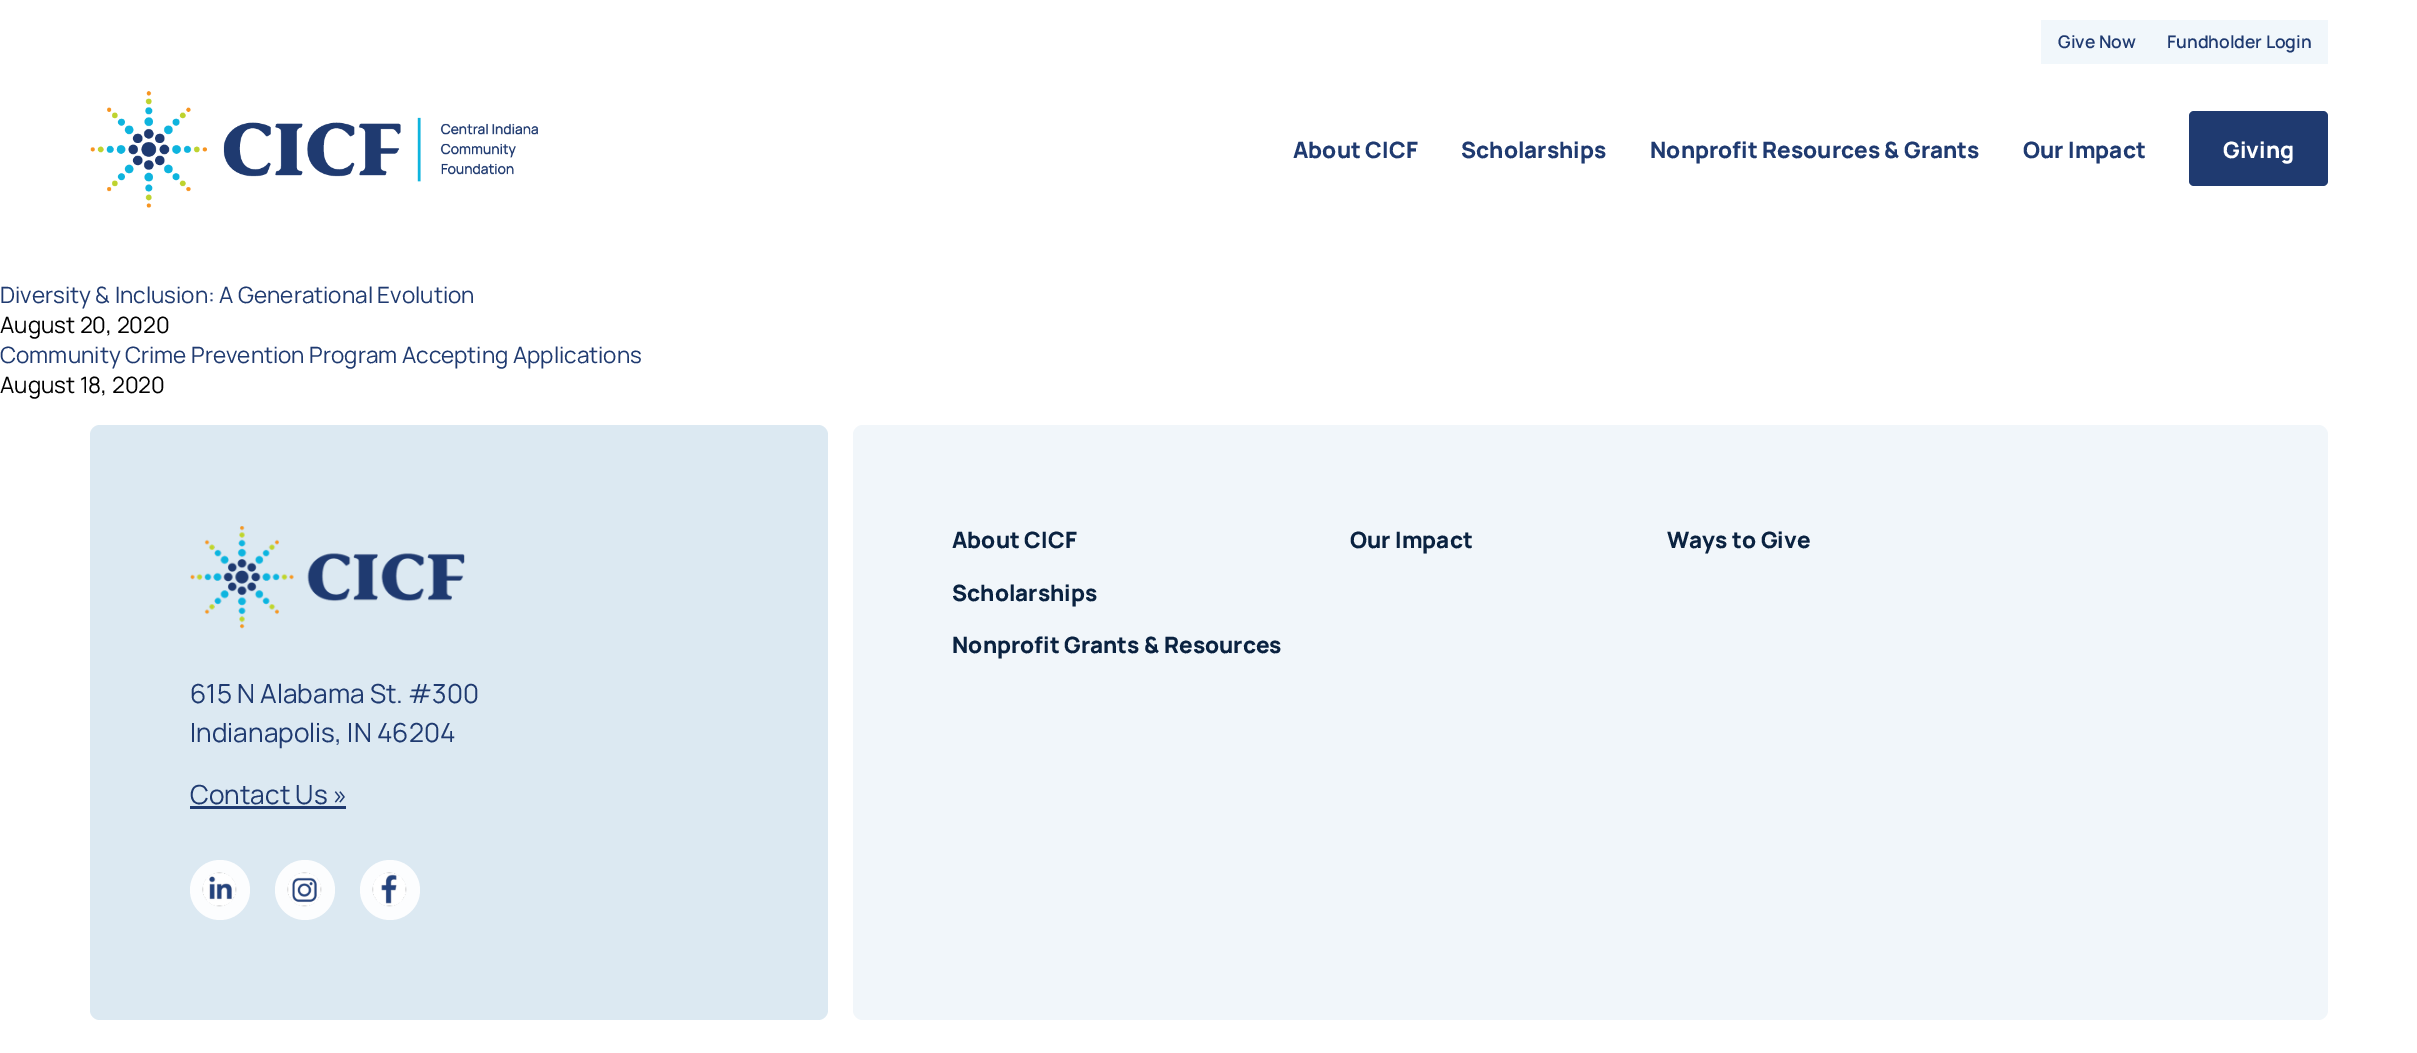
%!PS
<< /PageSize [2417 1053] >> setpagedevice
/rgb { 3 { 255 div 3 1 roll } repeat setrgbcolor } def
/font { [ exch dup neg 0 0 3 -1 roll 0 0 ] selectfont } def
/circle { newpath 0 360 arc closepath } def
/roundrect { 5 dict begin { /r /h /w /y /x } { exch def } forall
  x r add y moveto x w add y 2 copy h add r arct x w add y h add x 1 index r arct
  x y h add x y r arct x y 2 copy exch w add exch r arct closepath end } def
/picture { 5 dict begin { /h /w /y /x /name } { exch def } forall
  gsave x y translate w h scale
  w h 8 [w 0 0 h 0 0] name (r) file false 3 colorimage grestore end } def
0 1053 translate 1 -1 scale
4 setmiterlimit
255 255 255 rgb
0 0 2417 1053 rectfill
(img/1.rgb) 90 91 448 117 picture
241 247 251 rgb
2041 20 287 44 rectfill
31 58 112 rgb
2189 111 139 75 5 roundrect fill
241 246 250 rgb
853 425 1475 595 10 roundrect fill
220 233 242 rgb
90 425 738 595 10 roundrect fill
(img/2.rgb) 190 526 275 103 picture
31 58 112 rgb
190 806 156 3 rectfill
252 253 254 rgb
220 890 30 circle fill
(img/3.rgb) 202 872 35 35 picture
305 890 30 circle fill
(img/4.rgb) 287 872 35 35 picture
390 890 30 circle fill
(img/5.rgb) 372 872 35 35 picture
/Manrope-SemiBold 17.5 font
31 58 112 rgb
2058 48 moveto (Give Now) show
2167 48 moveto (Fundholder Login) show
/Manrope-ExtraBold 22.5 font
[
  [(About CICF) 1293 158]
  [(Scholarships) 1461 158]
  [(Nonprofit Resources & Grants) 1650 158]
  [(Our Impact) 2023 158]
] { aload pop moveto show } forall
255 255 255 rgb
2223 158 moveto (Giving) show
/Manrope-Regular 22.5 font
31 58 112 rgb
0 303 moveto (Diversity & Inclusion: A Generational Evolution) show
0 0 0 rgb
0 333 moveto (August 20, 2020) show
31 58 112 rgb
0 363 moveto (Community Crime Prevention Program Accepting Applications) show
0 0 0 rgb
0 393 moveto (August 18, 2020) show
/Manrope-ExtraBold 22.5 font
10 34 64 rgb
[
  [(About CICF) 952 548]
  [(Scholarships) 952 601]
  [(Nonprofit Grants & Resources) 952 653]
  [(Our Impact) 1350 548]
  [(Ways to Give) 1667 548]
] { aload pop moveto show } forall
/Manrope-Regular 26.25 font
31 58 112 rgb
[
  [(615 N Alabama St. #300) 190 703]
  [(Indianapolis, IN 46204) 190 742]
  [(Contact Us ») 190 804]
] { aload pop moveto show } forall
showpage
